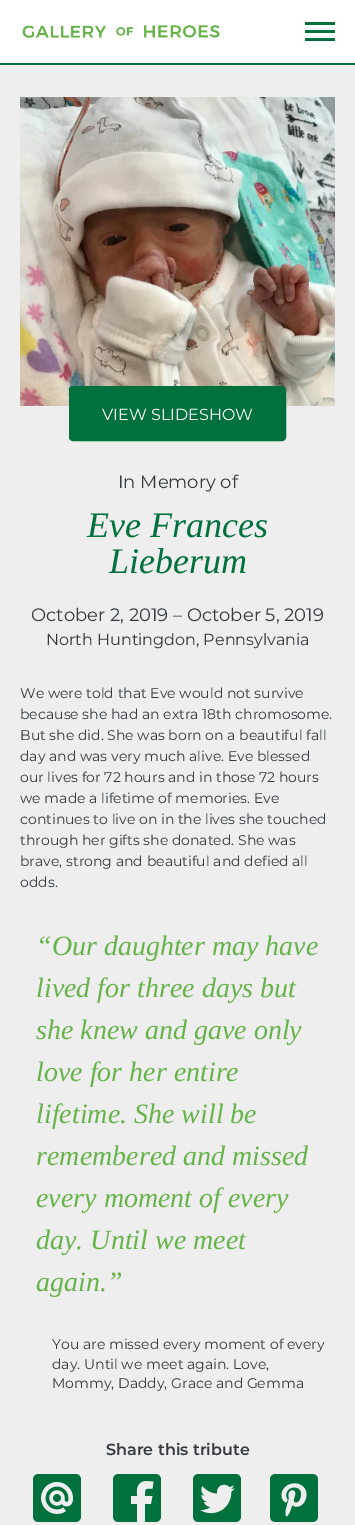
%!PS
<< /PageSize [355 1525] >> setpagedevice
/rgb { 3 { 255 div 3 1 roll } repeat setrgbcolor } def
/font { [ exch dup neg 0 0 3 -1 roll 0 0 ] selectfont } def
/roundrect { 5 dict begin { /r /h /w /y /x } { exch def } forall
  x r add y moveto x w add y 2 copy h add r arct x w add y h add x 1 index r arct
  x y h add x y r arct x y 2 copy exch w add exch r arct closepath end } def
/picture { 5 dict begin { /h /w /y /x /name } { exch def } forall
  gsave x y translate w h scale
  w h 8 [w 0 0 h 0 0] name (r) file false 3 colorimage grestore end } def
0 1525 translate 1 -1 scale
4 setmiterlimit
255 255 255 rgb
0 0 355 1525 rectfill
0 112 60 rgb
0 63 355 2 rectfill
(img/1.rgb) 22 25 198 13 picture
[
  [305 30 30 3 0 112 60]
  [305 22 30 3 0 112 60]
  [305 38 30 3 0 112 60]
  [0 65 355 1460 238 238 238]
] { aload pop rgb rectfill } forall
(img/2.rgb) 20 97 315 309 picture
0 112 60 rgb
69.5 386.5 216 54 3.5 roundrect gsave fill grestore
stroke
(img/3.rgb) 33 1474 48 48 picture
(img/4.rgb) 113 1474 48 48 picture
(img/5.rgb) 193 1474 48 48 picture
(img/6.rgb) 270 1474 48 48 picture
/Montserrat-Regular 16 font
255 255 255 rgb
102 420 moveto (VIEW SLIDESHOW) show
/Montserrat-Regular 18 font
52 58 64 rgb
118 488 moveto (In Memory of) show
/LiberationSerif-Italic 36 font
0 112 60 rgb
87 537 moveto (Eve Frances) show
109 573 moveto (Lieberum) show
/Montserrat-Regular 18 font
52 58 64 rgb
31 621 moveto (October 2, 2019 – October 5, 2019) show
/Montserrat-Regular 16 font
46 645 moveto (North Huntingdon, Pennsylvania) show
/Montserrat-Regular 14 font
[
  [(We were told that Eve would not survive) 20 698]
  [(because she had an extra 18th chromosome.) 20 719]
  [(But she did. She was born on a beautiful fall) 20 740]
  [(day and was very much alive. Eve blessed) 20 761]
  [(our lives for 72 hours and in those 72 hours) 20 782]
  [(we made a lifetime of memories. Eve) 20 803]
  [(continues to live on in the lives she touched) 20 824]
  [(through her gifts she donated. She was) 20 845]
  [(brave, strong and beautiful and defied all) 20 866]
  [(odds.) 20 887]
] { aload pop moveto show } forall
/LiberationSerif-Italic 28 font
102 179 74 rgb
[
  [(“Our daughter may have) 36 955]
  [(lived for three days but) 36 997]
  [(she knew and gave only) 36 1039]
  [(love for her entire) 36 1081]
  [(lifetime. She will be) 36 1123]
  [(remembered and missed) 36 1165]
  [(every moment of every) 36 1207]
  [(day. Until we meet) 36 1249]
  [(again.”) 36 1291]
] { aload pop moveto show } forall
/Montserrat-Regular 14 font
52 58 64 rgb
[
  [(You are missed every moment of every) 52 1349]
  [(day. Until we meet again. Love,) 52 1369]
  [(Mommy, Daddy, Grace and Gemma) 52 1388]
] { aload pop moveto show } forall
/Montserrat-SemiBold 16 font
106 1455 moveto (Share this tribute) show
showpage
